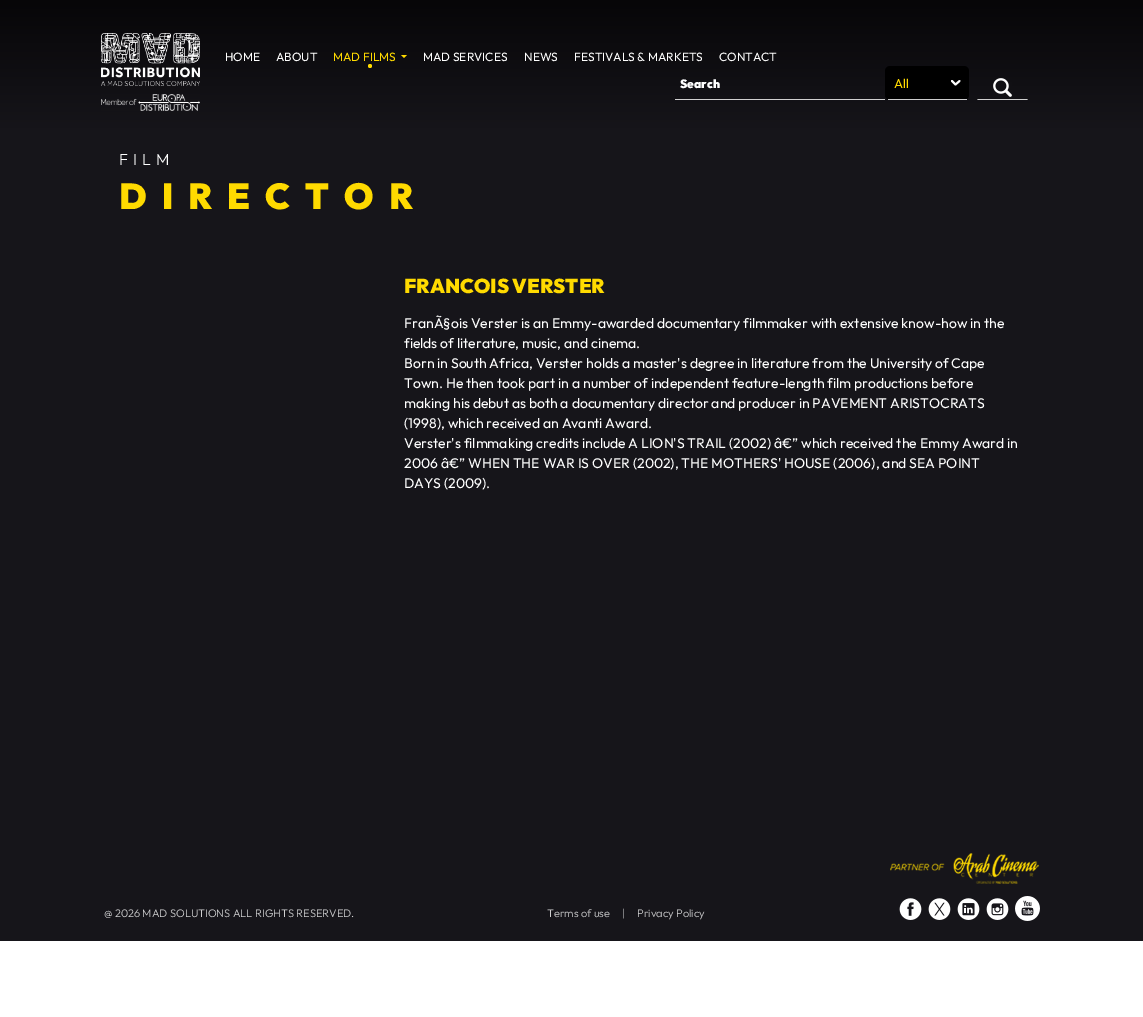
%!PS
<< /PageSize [1143 1017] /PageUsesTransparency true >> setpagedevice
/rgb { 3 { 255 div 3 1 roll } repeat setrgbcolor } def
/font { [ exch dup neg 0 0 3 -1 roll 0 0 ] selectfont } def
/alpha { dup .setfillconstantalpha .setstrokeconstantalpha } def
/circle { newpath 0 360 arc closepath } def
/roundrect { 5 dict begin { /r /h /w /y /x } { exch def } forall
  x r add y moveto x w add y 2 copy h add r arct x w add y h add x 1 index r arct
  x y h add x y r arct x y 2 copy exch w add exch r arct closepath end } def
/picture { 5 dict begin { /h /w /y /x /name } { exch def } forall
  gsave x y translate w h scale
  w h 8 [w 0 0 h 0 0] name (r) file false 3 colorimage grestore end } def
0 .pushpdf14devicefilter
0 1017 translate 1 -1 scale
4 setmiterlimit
255 255 255 rgb
0 0 1143 1017 rectfill
gsave 0 0 moveto 1143 0 lineto 1143 129 lineto 0 129 lineto closepath clip newpath
<< /ShadingType 2 /ColorSpace /DeviceRGB /Coords [572 0 572 129] /Extend [true true] /Function << /FunctionType 2 /Domain [0 1] /C0 [0.027 0.024 0.031] /C1 [0.086 0.082 0.102] /N 1 >> >> shfill grestore
(img/1.rgb) 101 33 99 53 picture
(img/2.rgb) 101 94 99 17 picture
255 218 0 rgb
401 55 moveto 407 55 lineto 404 58 lineto closepath fill
370 66 2 circle fill
208 208 208 rgb
675 99 210 1 rectfill
0 0 0 rgb
885 66 84 34 5 roundrect fill
255 255 255 rgb
1.9 setlinewidth
1 setlinecap
1 setlinejoin
952 81 moveto 955.5 84.5 lineto 959.5 81 lineto stroke
0.8 alpha
888 99 79 1 rectfill
1 alpha
208 208 208 rgb
1028 100 moveto 977 100 lineto 978 99 lineto 1027 99 lineto closepath fill
(img/3.rgb) 993 78 19 19 picture
22 21 26 rgb
0 129 1143 812 rectfill
(img/4.rgb) 890 853 149 31 picture
(img/5.rgb) 899 898 23 22 picture
(img/6.rgb) 928 898 23 22 picture
(img/7.rgb) 957 898 23 22 picture
(img/8.rgb) 986 898 23 22 picture
(img/9.rgb) 1015 896 25 25 picture
/Outfit-Regular 12 font
255 255 255 rgb
225 61 moveto (HOME) show
276 61 moveto (ABOUT) show
255 218 0 rgb
333 61 moveto (MAD FILMS) show
255 255 255 rgb
[
  [(MAD SERVICES) 423 61]
  [(NEWS) 524 61]
  [(FESTIVALS & MARKETS) 574 61]
  [(CONTACT) 719 61]
] { aload pop moveto show } forall
/Outfit-Black 12 font
680 88 moveto (Search) show
/Outfit-Regular 13 font
255 218 0 rgb
894 88 moveto (All) show
/Outfit-Light 16 font
255 255 255 rgb
119 165 moveto 5 0 (FILM) ashow
/Outfit-Black 36 font
255 218 0 rgb
119 209 moveto 15 0 (DIRECTOR) ashow
/Outfit-Black 20 font
404 293 moveto (FRANCOIS VERSTER) show
/Outfit-Regular 14 font
255 255 255 rgb
[
  [(FranÃ§ois Verster is an Emmy-awarded documentary filmmaker with extensive know-how in the) 404 328]
  [(fields of literature, music, and cinema.) 404 348]
  [(Born in South Africa, Verster holds a master's degree in literature from the University of Cape) 404 368]
  [(Town. He then took part in a number of independent feature-length film productions before) 404 388]
  [(making his debut as both a documentary director and producer in PAVEMENT ARISTOCRATS) 404 408]
  [(\(1998\), which received an Avanti Award.) 404 428]
  [(Verster's filmmaking credits include A LION'S TRAIL \(2002\) â€” which received the Emmy Award in) 404 448]
  [(2006 â€” WHEN THE WAR IS OVER \(2002\), THE MOTHERS' HOUSE \(2006\), and SEA POINT) 404 468]
  [(DAYS \(2009\).) 404 488]
] { aload pop moveto show } forall
/Outfit-Light 11 font
208 208 209 rgb
[
  [(@ 2026 MAD SOLUTIONS ALL RIGHTS RESERVED.) 104 917]
  [(Terms of use) 547 917]
  [(|) 622 917]
  [(Privacy Policy) 637 917]
] { aload pop moveto show } forall
.poppdf14devicefilter showpage
